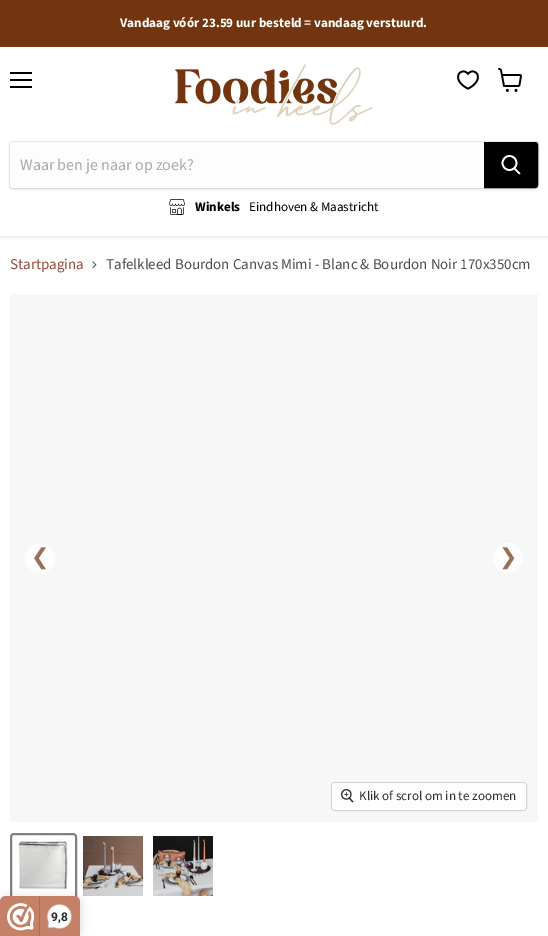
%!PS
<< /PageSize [548 936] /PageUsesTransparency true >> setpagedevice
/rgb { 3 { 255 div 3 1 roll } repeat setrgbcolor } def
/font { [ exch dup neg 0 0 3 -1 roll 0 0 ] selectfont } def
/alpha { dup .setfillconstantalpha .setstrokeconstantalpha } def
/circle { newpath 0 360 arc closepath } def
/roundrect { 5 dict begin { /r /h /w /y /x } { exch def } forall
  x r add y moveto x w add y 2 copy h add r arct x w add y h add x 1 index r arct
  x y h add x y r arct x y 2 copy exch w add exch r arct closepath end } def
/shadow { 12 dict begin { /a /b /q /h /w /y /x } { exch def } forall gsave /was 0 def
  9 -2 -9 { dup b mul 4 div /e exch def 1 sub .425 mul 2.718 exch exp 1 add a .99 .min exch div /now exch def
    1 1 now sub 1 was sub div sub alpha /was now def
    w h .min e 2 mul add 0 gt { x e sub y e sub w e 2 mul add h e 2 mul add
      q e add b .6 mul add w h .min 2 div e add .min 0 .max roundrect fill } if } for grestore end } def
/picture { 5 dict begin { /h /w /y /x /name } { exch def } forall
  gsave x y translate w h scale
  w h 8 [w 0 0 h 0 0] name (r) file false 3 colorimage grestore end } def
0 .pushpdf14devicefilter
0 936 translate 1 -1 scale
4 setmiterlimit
255 255 255 rgb
0 0 548 936 rectfill
115 53 15 rgb
0 0 548 47 rectfill
gsave
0 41 moveto 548 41 lineto 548 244 lineto 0 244 lineto closepath 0 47 moveto 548 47 lineto 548 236 lineto 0 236 lineto closepath eoclip newpath
128 128 128 rgb
0 48 548 189 0 2 0.25 shadow
grestore
[
  [10 72 22 2 0 0 0]
  [10 79 22 2 0 0 0]
  [10 86 22 2 0 0 0]
] { aload pop rgb rectfill } forall
(img/1.rgb) 457 70 22 20 picture
(img/2.rgb) 498 68 24 24 picture
(img/3.rgb) 175 64 198 61 picture
128 128 128 rgb
9 143 530 48 4 1.5 0.11 shadow
0.2 alpha
9.5 141.5 529 47 3.5 roundrect stroke
1 alpha
253 253 253 rgb
13 142 moveto 484 142 lineto 484 188 lineto 13 188 lineto 11.5 188 10 186.5 10 185 curveto 10 145 lineto 10 143.5 11.5 142 13 142 curveto closepath fill
0 0 0 rgb
484.5 142.5 moveto 535 142.5 lineto 536.5 142.5 537.5 143.5 537.5 145 curveto 537.5 185 lineto 537.5 186.5 536.5 187.5 535 187.5 curveto 484.5 187.5 lineto closepath gsave fill grestore
stroke
255 255 255 rgb
1.7 setlinewidth
1 setlinecap
519.5 173.5 moveto 514.5 168.5 lineto stroke
0 setlinecap
509.5 163 7 circle stroke
(img/4.rgb) 169 199 16 16 picture
(img/5.rgb) 92 261 5 8 picture
247 247 247 rgb
10 294 528 528 rectfill
253 253 253 rgb
40 558 15 circle fill
508 558 15 circle fill
210 210 210 rgb
1 setlinewidth
331.5 782.5 195 28 3.5 roundrect stroke
0.9 alpha
255 255 255 rgb
332 783 194 27 3 roundrect fill
1 alpha
(img/6.rgb) 341 789 13 14 picture
129 129 129 rgb
2 setlinewidth
11 834 65 65 3 roundrect stroke
(img/7.rgb) 18 839 50 50 picture
(img/8.rgb) 83 836 60 60 picture
(img/9.rgb) 153 836 60 60 picture
0 0 0 rgb
0 898 80 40 6 5 0.15 shadow
196 129 103 rgb
6 896 moveto 74 896 lineto 77.5 896 80 898.5 80 902 curveto 80 936 lineto 0 936 lineto 0 902 lineto 0 898.5 2.5 896 6 896 curveto closepath fill
(img/10.rgb) 7 903 27 28 picture
167 110 88 rgb
39 897 1 39 rectfill
(img/11.rgb) 46 904 26 25 picture
/SourceSansPro-Bold 13.1 font
255 255 255 rgb
120 27 moveto (Vandaag vóór 23.59 uur besteld = vandaag verstuurd.) show
/SourceSansPro-Regular 16 font
170 170 170 rgb
20 170 moveto (Waar ben je naar op zoek?) show
/SourceSansPro-Bold 13.1 font
0 0 0 rgb
195 211 moveto (Winkels) show
/SourceSansPro-Regular 13.1 font
249 211 moveto (Eindhoven & Maastricht) show
/SourceSansPro-Regular 15 font
147 73 61 rgb
10 269 moveto (Startpagina) show
77 77 77 rgb
106 269 moveto (Tafelkleed Bourdon Canvas Mimi - Blanc & Bourdon Noir 170x350cm) show
/DejaVuSans-Regular 22 font
155 111 85 rgb
31 564 moveto (❮) show
499 564 moveto (❯) show
/SourceSansPro-Regular 13.1 font
46 46 46 rgb
359 800 moveto (Klik of scrol om in te zoomen) show
/Roboto-Bold 12 font
39 38 38 rgb
51 921 moveto (9,8) show
.poppdf14devicefilter showpage
